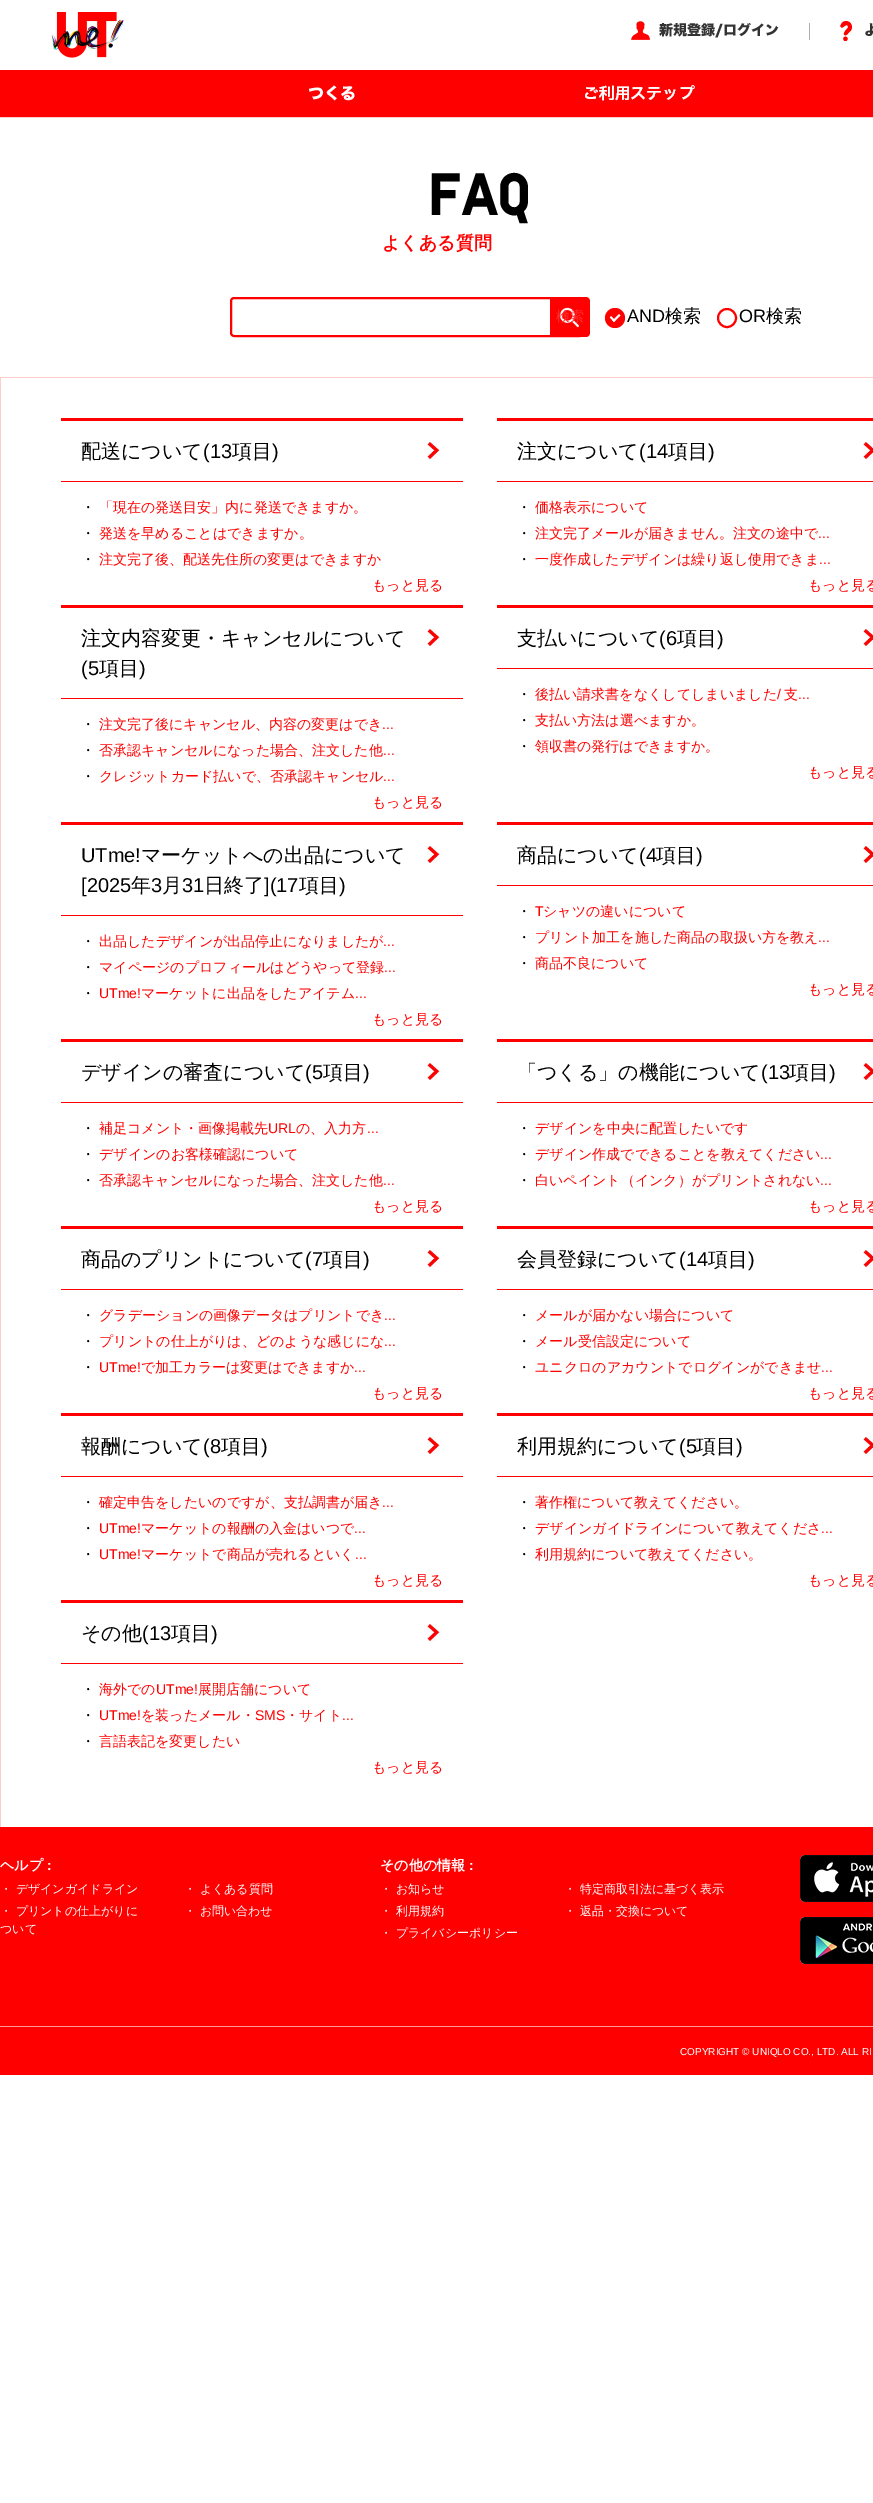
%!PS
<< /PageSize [873 2503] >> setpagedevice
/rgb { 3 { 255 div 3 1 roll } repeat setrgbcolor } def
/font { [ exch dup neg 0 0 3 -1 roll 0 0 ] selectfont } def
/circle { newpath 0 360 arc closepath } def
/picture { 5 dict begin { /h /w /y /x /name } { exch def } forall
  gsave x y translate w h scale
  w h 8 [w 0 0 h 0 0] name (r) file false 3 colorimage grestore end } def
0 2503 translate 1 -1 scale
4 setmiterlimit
255 255 255 rgb
0 0 873 2503 rectfill
255 204 204 rgb
0 117 873 1 rectfill
(img/1.rgb) 51 12 73 46 picture
(img/2.rgb) 631 21 19 19 picture
(img/3.rgb) 659 23 120 15 picture
174 174 174 rgb
809 23 1 17 rectfill
(img/4.rgb) 840 21 12 20 picture
(img/5.rgb) 865 23 8 13 picture
255 0 0 rgb
0 70 873 47 rectfill
(img/6.rgb) 309 85 46 16 picture
(img/7.rgb) 585 85 110 16 picture
255 204 204 rgb
0 377 873 1 rectfill
255 0 0 rgb
2 setlinewidth
234 298 moveto 579 298 lineto 579 336 lineto 234 336 lineto 232.5 336 231 334.5 231 333 curveto 231 301 lineto 231 299.5 232.5 298 234 298 curveto closepath stroke
550 297 moveto 586 297 lineto 588 297 590 299 590 301 curveto 590 333 lineto 590 335 588 337 586 337 curveto 550 337 lineto closepath fill
(img/8.rgb) 560 307 19 21 picture
615 318 10 circle fill
255 255 255 rgb
619 314 moveto 620.5 315.5 lineto 614 322 lineto 612.5 320.5 lineto closepath fill
611 316 moveto 615.5 320.5 lineto 614 322 lineto 610 317.5 lineto closepath fill
255 0 0 rgb
727 318 9 circle stroke
[
  [0 378 1 1449 255 204 204]
  [61 418 402 3 255 0 0]
  [61 481 402 1 255 0 0]
] { aload pop rgb rectfill } forall
(img/9.rgb) 427 442 14 17 picture
497 418 376 3 rectfill
497 481 376 1 rectfill
(img/10.rgb) 863 442 10 17 picture
61 605 402 3 rectfill
61 698 402 1 rectfill
(img/9.rgb) 427 629 14 17 picture
497 605 376 3 rectfill
497 668 376 1 rectfill
(img/10.rgb) 863 629 10 17 picture
61 822 402 3 rectfill
61 915 402 1 rectfill
(img/9.rgb) 427 846 14 17 picture
497 822 376 3 rectfill
497 885 376 1 rectfill
(img/10.rgb) 863 846 10 17 picture
61 1039 402 3 rectfill
61 1102 402 1 rectfill
(img/9.rgb) 427 1063 14 17 picture
497 1039 376 3 rectfill
497 1102 376 1 rectfill
(img/10.rgb) 863 1063 10 17 picture
61 1226 402 3 rectfill
61 1289 402 1 rectfill
(img/9.rgb) 427 1250 14 17 picture
497 1226 376 3 rectfill
497 1289 376 1 rectfill
(img/10.rgb) 863 1250 10 17 picture
61 1413 402 3 rectfill
61 1476 402 1 rectfill
(img/9.rgb) 427 1437 14 17 picture
497 1413 376 3 rectfill
497 1476 376 1 rectfill
(img/10.rgb) 863 1437 10 17 picture
61 1600 402 3 rectfill
61 1663 402 1 rectfill
(img/11.rgb) 427 1624 14 17 picture
0 1827 873 248 rectfill
(img/12.rgb) 800 1855 73 47 picture
(img/13.rgb) 800 1917 73 47 picture
255 153 153 rgb
0 2026 873 1 rectfill
/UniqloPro-Bold 60 font
0 0 0 rgb
429 215 moveto (FAQ) show
/WenQuanYiZenHei-Bold 18 font
255 0 0 rgb
382 249 moveto (よくある質問) show
/WenQuanYiZenHei-Medium 14 font
255 51 51 rgb
556 321 moveto (検索) show
/LiberationSans-Regular 18 font
0 0 0 rgb
627 322 moveto (AND) show
/WenQuanYiZenHei-Medium 18 font
665 322 moveto (検索) show
/LiberationSans-Regular 18 font
739 322 moveto (OR) show
/WenQuanYiZenHei-Medium 18 font
766 322 moveto (検索) show
/WenQuanYiZenHei-Medium 20 font
81 458 moveto (配送について) show
/LiberationSans-Regular 20 font
203 458 moveto (\(13) show
/WenQuanYiZenHei-Medium 20 font
232 458 moveto (項目) show
/LiberationSans-Regular 20 font
272 458 moveto (\)) show
/WenQuanYiZenHei-Medium 14 font
81 512 moveto (・) show
255 0 0 rgb
99 512 moveto (「現在の発送目安」内に発送できますか。) show
0 0 0 rgb
81 538 moveto (・) show
255 0 0 rgb
99 538 moveto (発送を早めることはできますか。) show
0 0 0 rgb
81 564 moveto (・) show
255 0 0 rgb
99 564 moveto (注文完了後、配送先住所の変更はできますか) show
372 590 moveto (もっと見る) show
/WenQuanYiZenHei-Medium 20 font
0 0 0 rgb
517 458 moveto (注文について) show
/LiberationSans-Regular 20 font
639 458 moveto (\(14) show
/WenQuanYiZenHei-Medium 20 font
668 458 moveto (項目) show
/LiberationSans-Regular 20 font
708 458 moveto (\)) show
/WenQuanYiZenHei-Medium 14 font
517 512 moveto (・) show
255 0 0 rgb
535 512 moveto (価格表示について) show
0 0 0 rgb
517 538 moveto (・) show
255 0 0 rgb
535 538 moveto (注文完了メールが届きません。注文の途中で) show
/LiberationSans-Regular 14 font
818 538 moveto (...) show
/WenQuanYiZenHei-Medium 14 font
0 0 0 rgb
517 564 moveto (・) show
255 0 0 rgb
535 564 moveto (一度作成したデザインは繰り返し使用できま) show
/LiberationSans-Regular 14 font
819 564 moveto (...) show
/WenQuanYiZenHei-Medium 14 font
808 590 moveto (もっと見る) show
/WenQuanYiZenHei-Medium 20 font
0 0 0 rgb
81 645 moveto (注文内容変更・キャンセルについて) show
/LiberationSans-Regular 20 font
81 675 moveto (\(5) show
/WenQuanYiZenHei-Medium 20 font
99 675 moveto (項目) show
/LiberationSans-Regular 20 font
139 675 moveto (\)) show
/WenQuanYiZenHei-Medium 14 font
81 729 moveto (・) show
255 0 0 rgb
99 729 moveto (注文完了後にキャンセル、内容の変更はでき) show
/LiberationSans-Regular 14 font
382 729 moveto (...) show
/WenQuanYiZenHei-Medium 14 font
0 0 0 rgb
81 755 moveto (・) show
255 0 0 rgb
99 755 moveto (否承認キャンセルになった場合、注文した他) show
/LiberationSans-Regular 14 font
383 755 moveto (...) show
/WenQuanYiZenHei-Medium 14 font
0 0 0 rgb
81 781 moveto (・) show
255 0 0 rgb
99 781 moveto (クレジットカード払いで、否承認キャンセル) show
/LiberationSans-Regular 14 font
383 781 moveto (...) show
/WenQuanYiZenHei-Medium 14 font
372 807 moveto (もっと見る) show
/WenQuanYiZenHei-Medium 20 font
0 0 0 rgb
517 645 moveto (支払いについて) show
/LiberationSans-Regular 20 font
659 645 moveto (\(6) show
/WenQuanYiZenHei-Medium 20 font
677 645 moveto (項目) show
/LiberationSans-Regular 20 font
717 645 moveto (\)) show
/WenQuanYiZenHei-Medium 14 font
517 699 moveto (・) show
255 0 0 rgb
535 699 moveto (後払い請求書をなくしてしまいました) show
/LiberationSans-Regular 14 font
777 699 moveto (/) show
/WenQuanYiZenHei-Medium 14 font
784 699 moveto (支) show
/LiberationSans-Regular 14 font
798 699 moveto (...) show
/WenQuanYiZenHei-Medium 14 font
0 0 0 rgb
517 725 moveto (・) show
255 0 0 rgb
535 725 moveto (支払い方法は選べますか。) show
0 0 0 rgb
517 751 moveto (・) show
255 0 0 rgb
535 751 moveto (領収書の発行はできますか。) show
808 777 moveto (もっと見る) show
/LiberationSans-Regular 20 font
0 0 0 rgb
81 862 moveto (UTme!) show
/WenQuanYiZenHei-Medium 20 font
141 862 moveto (マーケットへの出品について) show
/LiberationSans-Regular 20 font
81 892 moveto ([2025) show
/WenQuanYiZenHei-Medium 20 font
131 892 moveto (年) show
/LiberationSans-Regular 20 font
151 892 moveto (3) show
/WenQuanYiZenHei-Medium 20 font
162 892 moveto (月) show
/LiberationSans-Regular 20 font
182 892 moveto (31) show
/WenQuanYiZenHei-Medium 20 font
204 892 moveto (日終了) show
/LiberationSans-Regular 20 font
264 892 moveto (]\(17) show
/WenQuanYiZenHei-Medium 20 font
299 892 moveto (項目) show
/LiberationSans-Regular 20 font
339 892 moveto (\)) show
/WenQuanYiZenHei-Medium 14 font
81 946 moveto (・) show
255 0 0 rgb
99 946 moveto (出品したデザインが出品停止になりましたが) show
/LiberationSans-Regular 14 font
383 946 moveto (...) show
/WenQuanYiZenHei-Medium 14 font
0 0 0 rgb
81 972 moveto (・) show
255 0 0 rgb
99 972 moveto (マイページのプロフィールはどうやって登録) show
/LiberationSans-Regular 14 font
384 972 moveto (...) show
/WenQuanYiZenHei-Medium 14 font
0 0 0 rgb
81 998 moveto (・) show
/LiberationSans-Regular 14 font
255 0 0 rgb
99 998 moveto (UTme!) show
/WenQuanYiZenHei-Medium 14 font
141 998 moveto (マーケットに出品をしたアイテム) show
/LiberationSans-Regular 14 font
355 998 moveto (...) show
/WenQuanYiZenHei-Medium 14 font
372 1024 moveto (もっと見る) show
/WenQuanYiZenHei-Medium 20 font
0 0 0 rgb
517 862 moveto (商品について) show
/LiberationSans-Regular 20 font
639 862 moveto (\(4) show
/WenQuanYiZenHei-Medium 20 font
656 862 moveto (項目) show
/LiberationSans-Regular 20 font
696 862 moveto (\)) show
/WenQuanYiZenHei-Medium 14 font
517 916 moveto (・) show
/LiberationSans-Regular 14 font
255 0 0 rgb
535 916 moveto (T) show
/WenQuanYiZenHei-Medium 14 font
543 916 moveto (シャツの違いについて) show
0 0 0 rgb
517 942 moveto (・) show
255 0 0 rgb
535 942 moveto (プリント加工を施した商品の取扱い方を教え) show
/LiberationSans-Regular 14 font
818 942 moveto (...) show
/WenQuanYiZenHei-Medium 14 font
0 0 0 rgb
517 968 moveto (・) show
255 0 0 rgb
535 968 moveto (商品不良について) show
808 994 moveto (もっと見る) show
/WenQuanYiZenHei-Medium 20 font
0 0 0 rgb
81 1079 moveto (デザインの審査について) show
/LiberationSans-Regular 20 font
305 1079 moveto (\(5) show
/WenQuanYiZenHei-Medium 20 font
323 1079 moveto (項目) show
/LiberationSans-Regular 20 font
363 1079 moveto (\)) show
/WenQuanYiZenHei-Medium 14 font
81 1133 moveto (・) show
255 0 0 rgb
99 1133 moveto (補足コメント・画像掲載先) show
/LiberationSans-Regular 14 font
268 1133 moveto (URL) show
/WenQuanYiZenHei-Medium 14 font
296 1133 moveto (の、入力方) show
/LiberationSans-Regular 14 font
367 1133 moveto (...) show
/WenQuanYiZenHei-Medium 14 font
0 0 0 rgb
81 1159 moveto (・) show
255 0 0 rgb
99 1159 moveto (デザインのお客様確認について) show
0 0 0 rgb
81 1185 moveto (・) show
255 0 0 rgb
99 1185 moveto (否承認キャンセルになった場合、注文した他) show
/LiberationSans-Regular 14 font
383 1185 moveto (...) show
/WenQuanYiZenHei-Medium 14 font
372 1211 moveto (もっと見る) show
/WenQuanYiZenHei-Medium 20 font
0 0 0 rgb
517 1079 moveto (「つくる」の機能について) show
/LiberationSans-Regular 20 font
761 1079 moveto (\(13) show
/WenQuanYiZenHei-Medium 20 font
789 1079 moveto (項目) show
/LiberationSans-Regular 20 font
829 1079 moveto (\)) show
/WenQuanYiZenHei-Medium 14 font
517 1133 moveto (・) show
255 0 0 rgb
535 1133 moveto (デザインを中央に配置したいです) show
0 0 0 rgb
517 1159 moveto (・) show
255 0 0 rgb
535 1159 moveto (デザイン作成でできることを教えてください) show
/LiberationSans-Regular 14 font
820 1159 moveto (...) show
/WenQuanYiZenHei-Medium 14 font
0 0 0 rgb
517 1185 moveto (・) show
255 0 0 rgb
535 1185 moveto (白いペイント（インク）がプリントされない) show
/LiberationSans-Regular 14 font
820 1185 moveto (...) show
/WenQuanYiZenHei-Medium 14 font
808 1211 moveto (もっと見る) show
/WenQuanYiZenHei-Medium 20 font
0 0 0 rgb
81 1266 moveto (商品のプリントについて) show
/LiberationSans-Regular 20 font
305 1266 moveto (\(7) show
/WenQuanYiZenHei-Medium 20 font
323 1266 moveto (項目) show
/LiberationSans-Regular 20 font
363 1266 moveto (\)) show
/WenQuanYiZenHei-Medium 14 font
81 1320 moveto (・) show
255 0 0 rgb
99 1320 moveto (グラデーションの画像データはプリントでき) show
/LiberationSans-Regular 14 font
384 1320 moveto (...) show
/WenQuanYiZenHei-Medium 14 font
0 0 0 rgb
81 1346 moveto (・) show
255 0 0 rgb
99 1346 moveto (プリントの仕上がりは、どのような感じにな) show
/LiberationSans-Regular 14 font
384 1346 moveto (...) show
/WenQuanYiZenHei-Medium 14 font
0 0 0 rgb
81 1372 moveto (・) show
/LiberationSans-Regular 14 font
255 0 0 rgb
99 1372 moveto (UTme!) show
/WenQuanYiZenHei-Medium 14 font
141 1372 moveto (で加工カラーは変更はできますか) show
/LiberationSans-Regular 14 font
354 1372 moveto (...) show
/WenQuanYiZenHei-Medium 14 font
372 1398 moveto (もっと見る) show
/WenQuanYiZenHei-Medium 20 font
0 0 0 rgb
517 1266 moveto (会員登録について) show
/LiberationSans-Regular 20 font
679 1266 moveto (\(14) show
/WenQuanYiZenHei-Medium 20 font
708 1266 moveto (項目) show
/LiberationSans-Regular 20 font
748 1266 moveto (\)) show
/WenQuanYiZenHei-Medium 14 font
517 1320 moveto (・) show
255 0 0 rgb
535 1320 moveto (メールが届かない場合について) show
0 0 0 rgb
517 1346 moveto (・) show
255 0 0 rgb
535 1346 moveto (メール受信設定について) show
0 0 0 rgb
517 1372 moveto (・) show
255 0 0 rgb
535 1372 moveto (ユニクロのアカウントでログインができませ) show
/LiberationSans-Regular 14 font
821 1372 moveto (...) show
/WenQuanYiZenHei-Medium 14 font
808 1398 moveto (もっと見る) show
/WenQuanYiZenHei-Medium 20 font
0 0 0 rgb
81 1453 moveto (報酬について) show
/LiberationSans-Regular 20 font
203 1453 moveto (\(8) show
/WenQuanYiZenHei-Medium 20 font
221 1453 moveto (項目) show
/LiberationSans-Regular 20 font
261 1453 moveto (\)) show
/WenQuanYiZenHei-Medium 14 font
81 1507 moveto (・) show
255 0 0 rgb
99 1507 moveto (確定申告をしたいのですが、支払調書が届き) show
/LiberationSans-Regular 14 font
382 1507 moveto (...) show
/WenQuanYiZenHei-Medium 14 font
0 0 0 rgb
81 1533 moveto (・) show
/LiberationSans-Regular 14 font
255 0 0 rgb
99 1533 moveto (UTme!) show
/WenQuanYiZenHei-Medium 14 font
141 1533 moveto (マーケットの報酬の入金はいつで) show
/LiberationSans-Regular 14 font
354 1533 moveto (...) show
/WenQuanYiZenHei-Medium 14 font
0 0 0 rgb
81 1559 moveto (・) show
/LiberationSans-Regular 14 font
255 0 0 rgb
99 1559 moveto (UTme!) show
/WenQuanYiZenHei-Medium 14 font
141 1559 moveto (マーケットで商品が売れるといく) show
/LiberationSans-Regular 14 font
355 1559 moveto (...) show
/WenQuanYiZenHei-Medium 14 font
372 1585 moveto (もっと見る) show
/WenQuanYiZenHei-Medium 20 font
0 0 0 rgb
517 1453 moveto (利用規約について) show
/LiberationSans-Regular 20 font
679 1453 moveto (\(5) show
/WenQuanYiZenHei-Medium 20 font
696 1453 moveto (項目) show
/LiberationSans-Regular 20 font
736 1453 moveto (\)) show
/WenQuanYiZenHei-Medium 14 font
517 1507 moveto (・) show
255 0 0 rgb
535 1507 moveto (著作権について教えてください。) show
0 0 0 rgb
517 1533 moveto (・) show
255 0 0 rgb
535 1533 moveto (デザインガイドラインについて教えてくださ) show
/LiberationSans-Regular 14 font
821 1533 moveto (...) show
/WenQuanYiZenHei-Medium 14 font
0 0 0 rgb
517 1559 moveto (・) show
255 0 0 rgb
535 1559 moveto (利用規約について教えてください。) show
808 1585 moveto (もっと見る) show
/WenQuanYiZenHei-Medium 20 font
0 0 0 rgb
81 1640 moveto (その他) show
/LiberationSans-Regular 20 font
142 1640 moveto (\(13) show
/WenQuanYiZenHei-Medium 20 font
171 1640 moveto (項目) show
/LiberationSans-Regular 20 font
211 1640 moveto (\)) show
/WenQuanYiZenHei-Medium 14 font
81 1694 moveto (・) show
255 0 0 rgb
99 1694 moveto (海外での) show
/LiberationSans-Regular 14 font
156 1694 moveto (UTme!) show
/WenQuanYiZenHei-Medium 14 font
198 1694 moveto (展開店舗について) show
0 0 0 rgb
81 1720 moveto (・) show
/LiberationSans-Regular 14 font
255 0 0 rgb
99 1720 moveto (UTme!) show
/WenQuanYiZenHei-Medium 14 font
141 1720 moveto (を装ったメール・) show
/LiberationSans-Regular 14 font
255 1720 moveto (SMS) show
/WenQuanYiZenHei-Medium 14 font
285 1720 moveto (・サイト) show
/LiberationSans-Regular 14 font
342 1720 moveto (...) show
/WenQuanYiZenHei-Medium 14 font
0 0 0 rgb
81 1746 moveto (・) show
255 0 0 rgb
99 1746 moveto (言語表記を変更したい) show
372 1772 moveto (もっと見る) show
/WenQuanYiZenHei-Bold 14 font
255 255 255 rgb
0 1870 moveto (ヘルプ) show
/LiberationSans-Bold 14 font
47 1870 moveto (:) show
/WenQuanYiZenHei-Medium 12 font
[
  [(・ デザインガイドライン) 0 1893]
  [(・ よくある質問) 184 1893]
  [(・ プリントの仕上がりに) 0 1915]
  [(ついて) 0 1933]
  [(・ お問い合わせ) 184 1915]
] { aload pop moveto show } forall
/WenQuanYiZenHei-Bold 14 font
380 1870 moveto (その他の情報) show
/LiberationSans-Bold 14 font
469 1870 moveto (:) show
/WenQuanYiZenHei-Medium 12 font
[
  [(・ お知らせ) 380 1893]
  [(・ 特定商取引法に基づく表示) 564 1893]
  [(・ 利用規約) 380 1915]
  [(・ 返品・交換について) 564 1915]
  [(・ プライバシーポリシー) 380 1937]
] { aload pop moveto show } forall
/LiberationSans-Regular 10 font
680 2055 moveto (COPYRIGHT © UNIQLO CO., LTD. ALL RI) show
showpage
